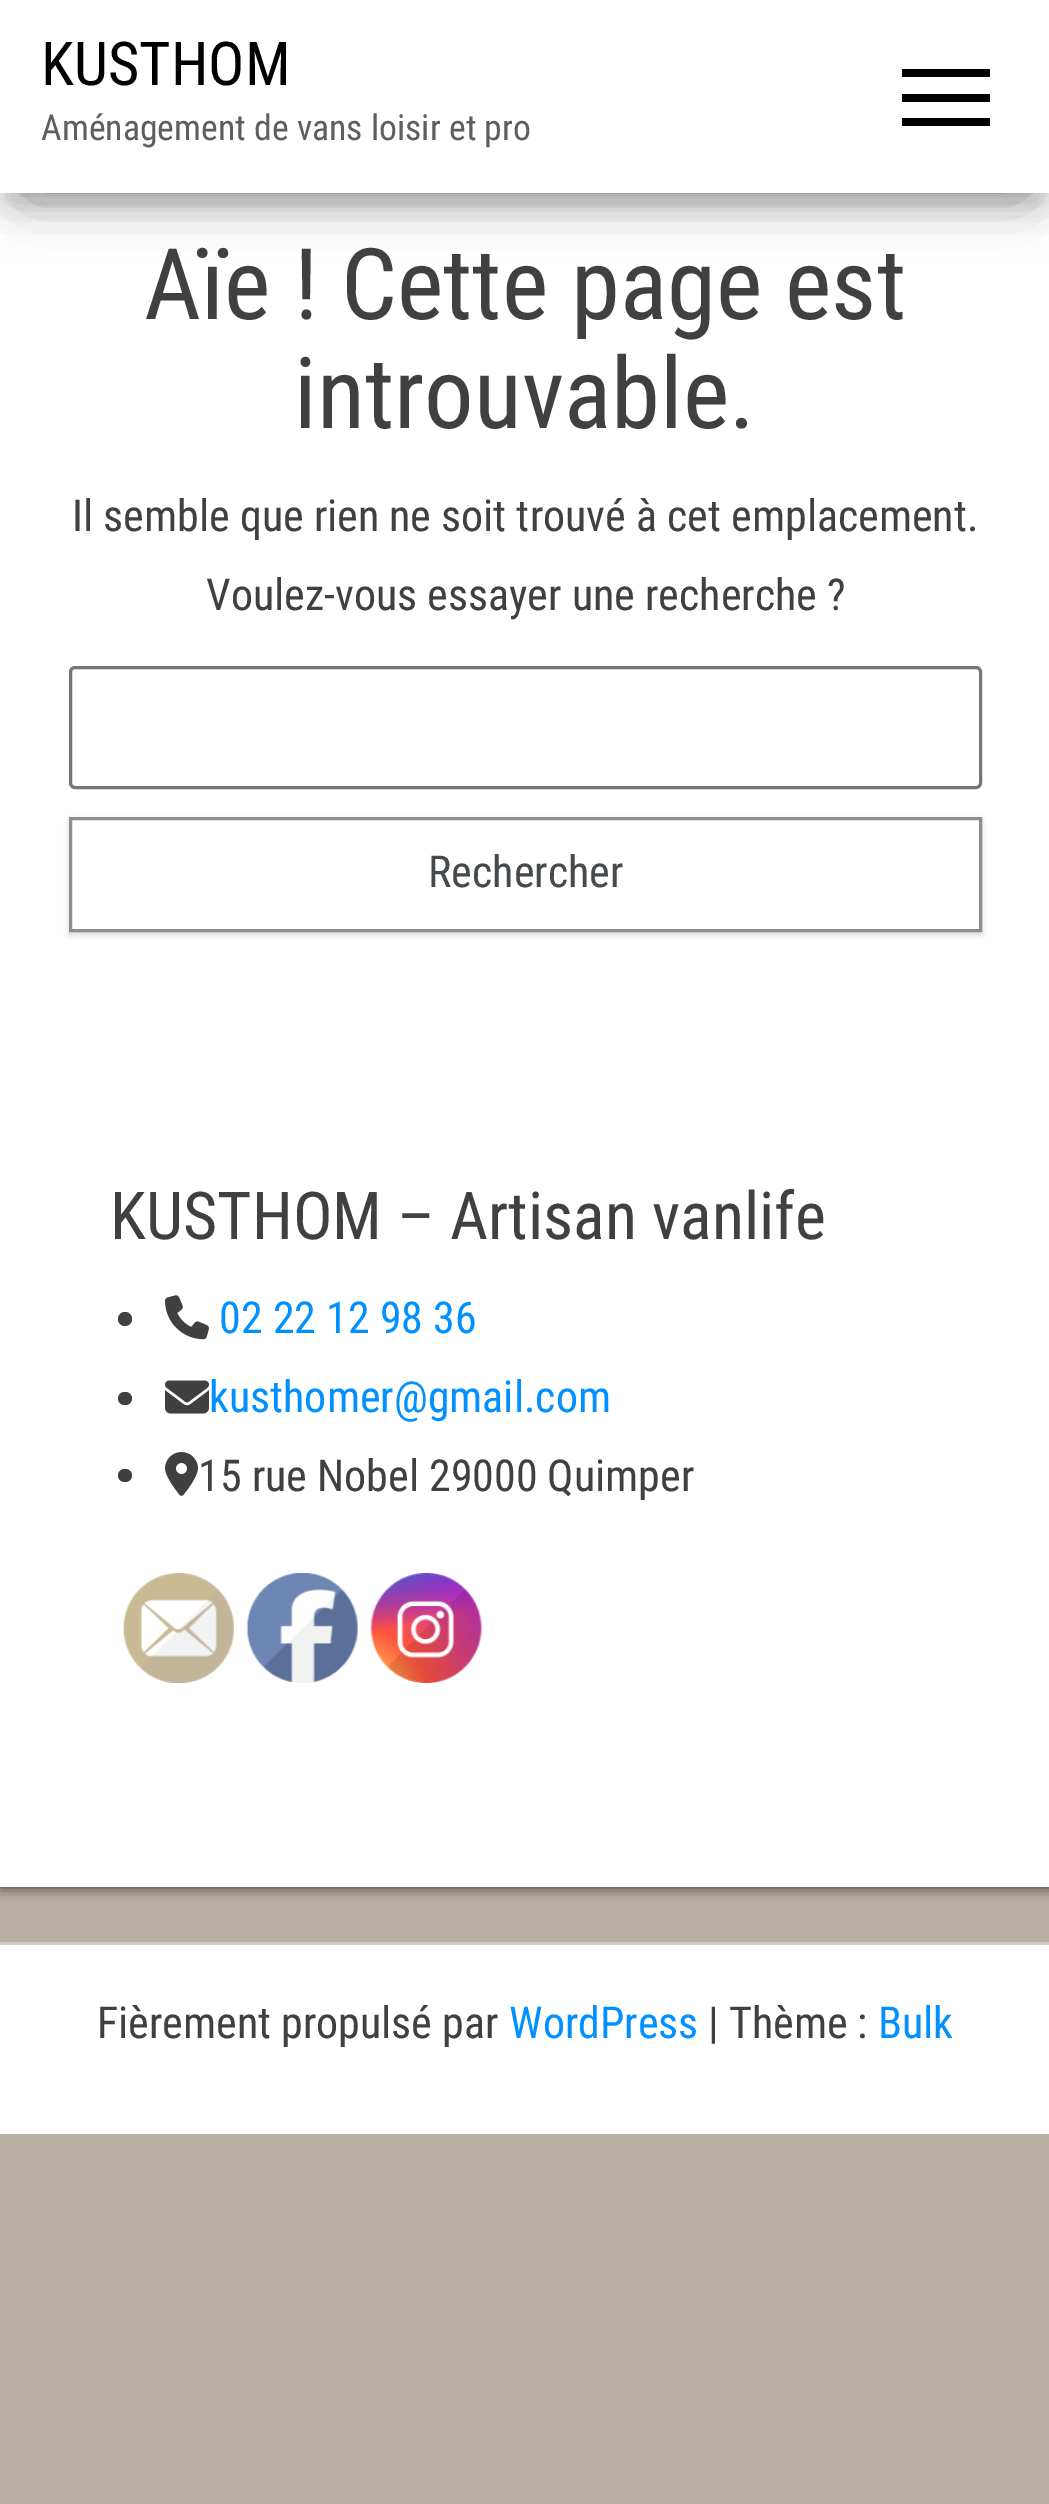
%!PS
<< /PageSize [1049 2504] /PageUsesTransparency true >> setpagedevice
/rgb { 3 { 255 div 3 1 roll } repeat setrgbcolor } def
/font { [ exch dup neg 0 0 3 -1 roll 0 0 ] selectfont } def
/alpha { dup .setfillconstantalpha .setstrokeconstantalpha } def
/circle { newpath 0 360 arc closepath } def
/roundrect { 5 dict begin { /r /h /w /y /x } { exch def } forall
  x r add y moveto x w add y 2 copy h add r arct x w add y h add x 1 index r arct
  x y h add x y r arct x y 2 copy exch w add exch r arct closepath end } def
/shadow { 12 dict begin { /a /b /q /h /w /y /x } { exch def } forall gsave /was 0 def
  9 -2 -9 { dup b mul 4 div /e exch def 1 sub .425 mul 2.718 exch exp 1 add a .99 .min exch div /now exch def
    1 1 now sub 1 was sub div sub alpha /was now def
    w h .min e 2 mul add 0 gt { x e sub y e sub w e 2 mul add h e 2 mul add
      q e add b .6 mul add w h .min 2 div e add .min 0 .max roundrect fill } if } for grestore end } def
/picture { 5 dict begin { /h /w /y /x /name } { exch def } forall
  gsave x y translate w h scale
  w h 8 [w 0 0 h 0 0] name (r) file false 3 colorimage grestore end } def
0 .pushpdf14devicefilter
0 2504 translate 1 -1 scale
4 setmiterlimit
186 175 163 rgb
0 0 1049 2504 rectfill
0 0 0 rgb
0 110 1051 1777 0 7 0.75 shadow
255 255 255 rgb
0 193 1049 1694 rectfill
0 0 0 rgb
14 36 1023 165 0 14 0.2 shadow
0 8 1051 193 0 27.5 0.12 shadow
33 61 985 126 0 27.5 0.42 shadow
[
  [0 0 1049 193 255 255 255]
  [902 69 88 8 0 0 0]
  [902 94 88 8 0 0 0]
  [902 118 88 8 0 0 0]
] { aload pop rgb rectfill } forall
118 118 118 rgb
3 setlinewidth
70.5 667.5 910 120 4.5 roundrect stroke
0 0 0 rgb
69 820 913 115 0 3 0.15 shadow
255 255 255 rgb
70.5 818.5 moveto 980.5 818.5 lineto 980.5 930.5 lineto 70.5 930.5 lineto closepath gsave fill grestore
142 142 142 rgb
stroke
64 64 64 rgb
125 1319 7 circle fill
(img/1.rgb) 165 1295 44 45 picture
118 1392 14 13 6.5 roundrect fill
(img/2.rgb) 165 1380 44 34 picture
118 1469 14 13 6.5 roundrect fill
(img/3.rgb) 165 1452 33 44 picture
(img/4.rgb) 123 1573 111 110 picture
(img/5.rgb) 246 1573 112 110 picture
(img/6.rgb) 370 1573 112 110 picture
255 255 255 rgb
0 1945 1049 189 rectfill
204 204 204 rgb
0 1942 1049 3 rectfill
/RobotoCondensed-Regular 60.5 font
0 0 0 rgb
41 85 moveto (KUSTHOM) show
/RobotoCondensed-Regular 35.75 font
94 94 94 rgb
41 140 moveto (Aménagement de vans loisir et pro) show
/RobotoCondensed-Regular 99 font
64 64 64 rgb
144 319 moveto (Aïe ! Cette page est) show
294 428 moveto (introuvable.) show
/RobotoCondensed-Regular 44 font
72 531 moveto (Il semble que rien ne soit trouvé à cet emplacement.) show
206 610 moveto (Voulez-vous essayer une recherche ?) show
70 74 76 rgb
428 887 moveto (Rechercher) show
/RobotoCondensed-Regular 66 font
64 64 64 rgb
110 1239 moveto (KUSTHOM – Artisan vanlife) show
/RobotoCondensed-Regular 44 font
0 144 255 rgb
219 1333 moveto (02 22 12 98 36) show
209 1412 moveto (kusthomer@gmail.com) show
64 64 64 rgb
198 1491 moveto (15 rue Nobel 29000 Quimper) show
97 2038 moveto (Fièrement propulsé par) show
0 144 255 rgb
509 2038 moveto (WordPress) show
64 64 64 rgb
708 2038 moveto (| Thème :) show
0 144 255 rgb
878 2038 moveto (Bulk) show
.poppdf14devicefilter showpage
